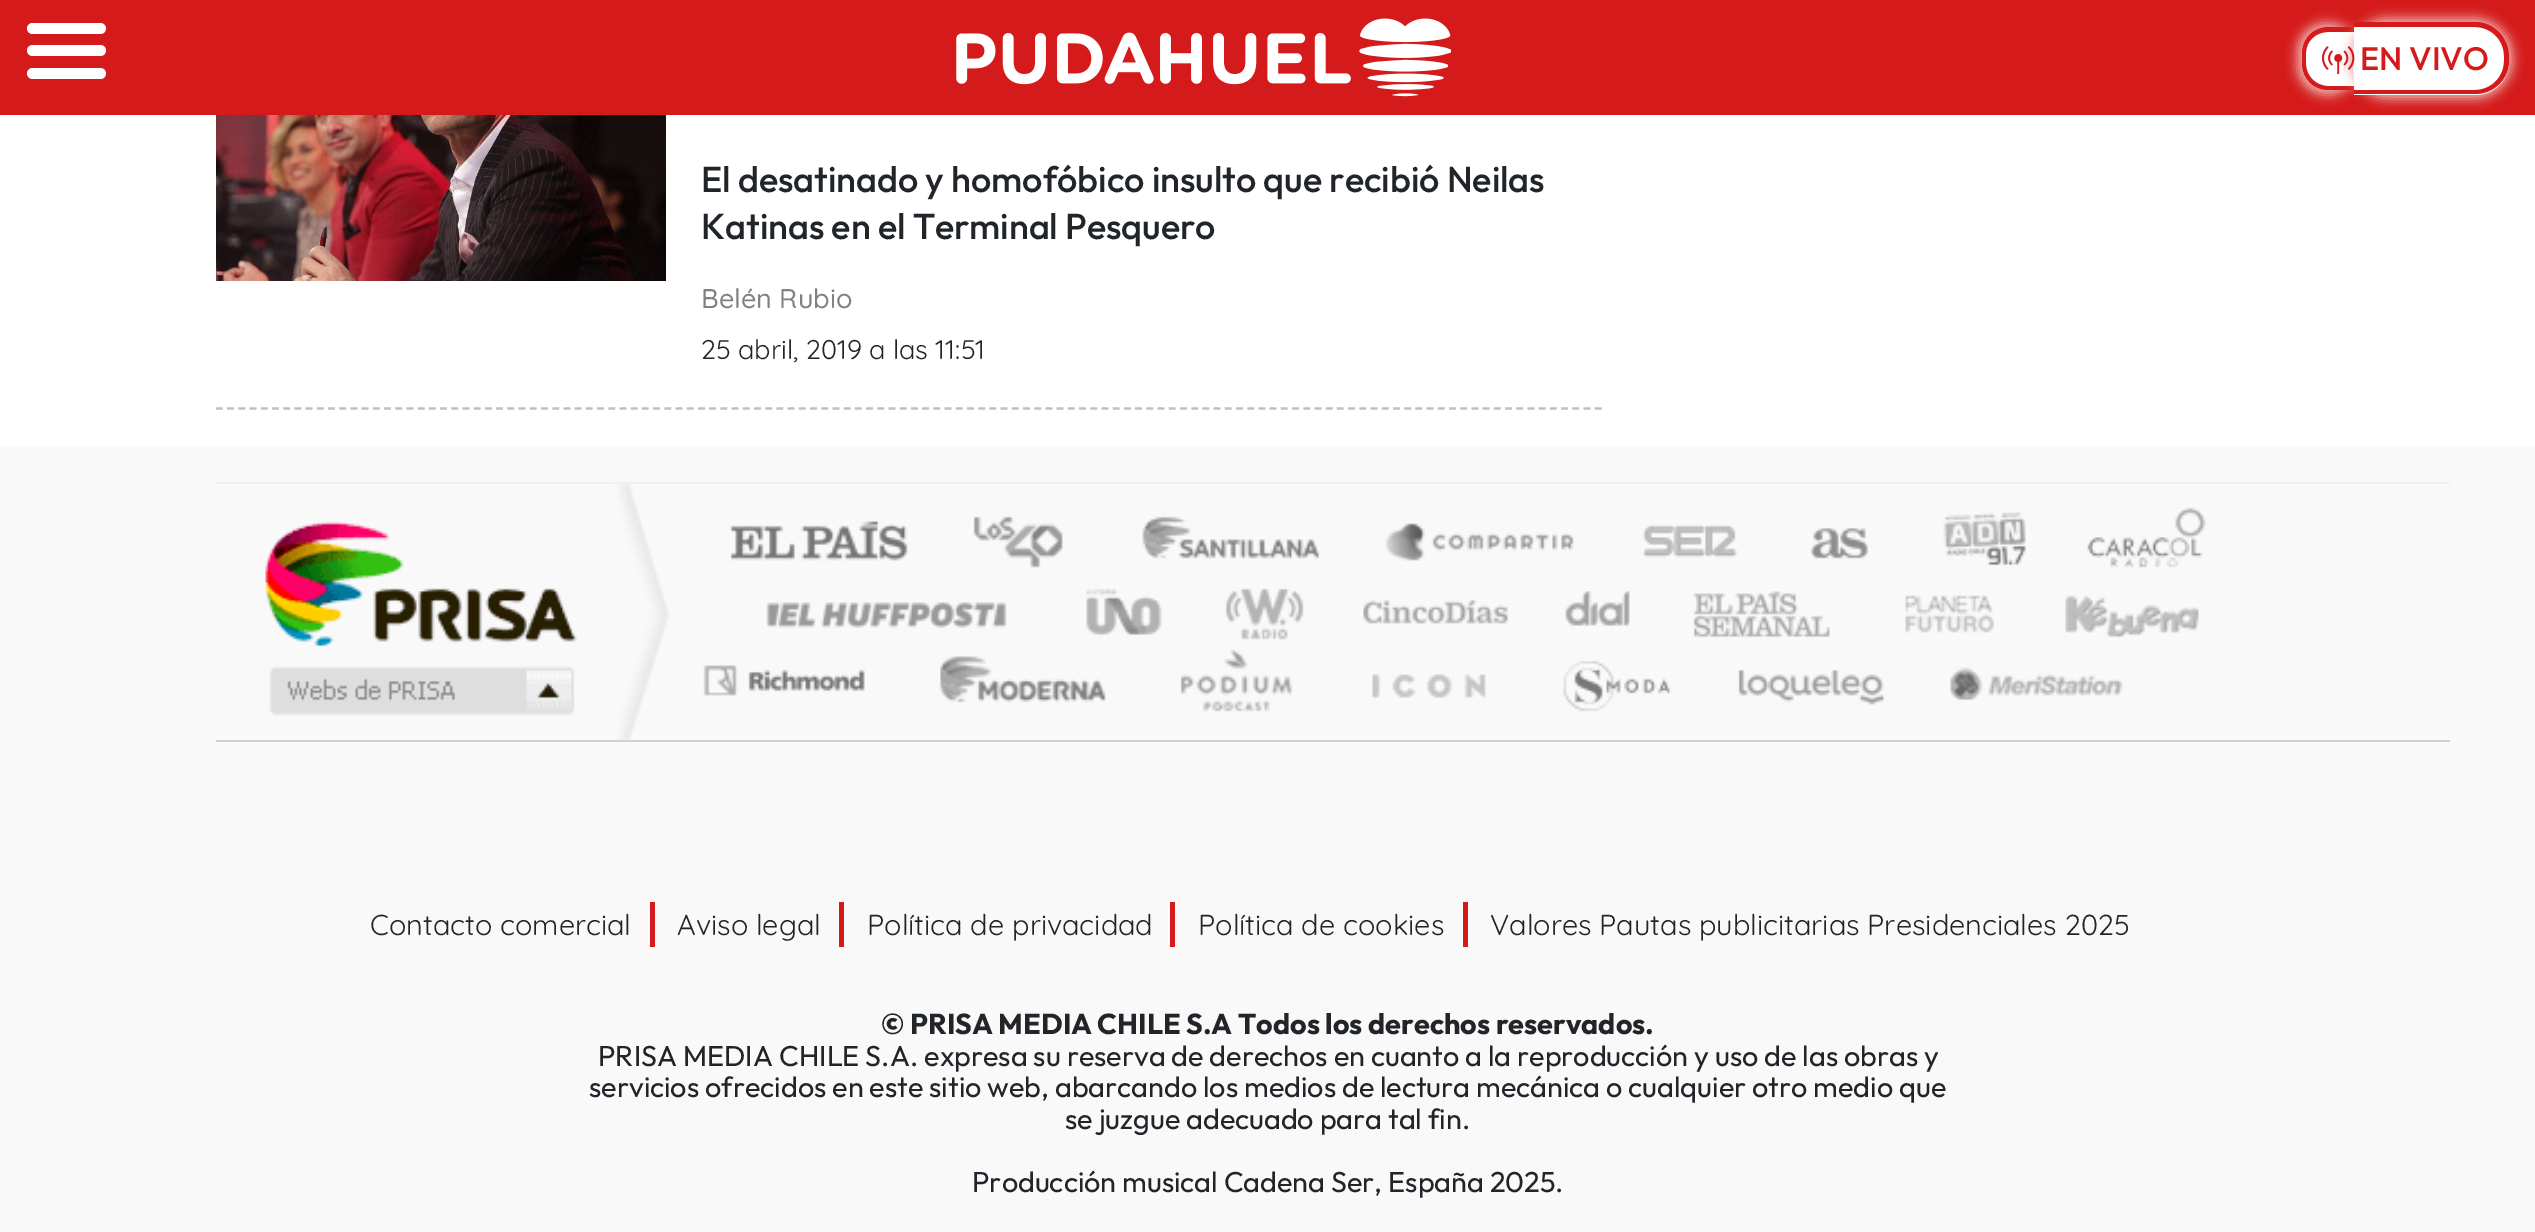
%!PS
<< /PageSize [2535 1232] /PageUsesTransparency true >> setpagedevice
/rgb { 3 { 255 div 3 1 roll } repeat setrgbcolor } def
/font { [ exch dup neg 0 0 3 -1 roll 0 0 ] selectfont } def
/alpha { dup .setfillconstantalpha .setstrokeconstantalpha } def
/roundrect { 5 dict begin { /r /h /w /y /x } { exch def } forall
  x r add y moveto x w add y 2 copy h add r arct x w add y h add x 1 index r arct
  x y h add x y r arct x y 2 copy exch w add exch r arct closepath end } def
/shadow { 12 dict begin { /a /b /q /h /w /y /x } { exch def } forall gsave /was 0 def
  9 -2 -9 { dup b mul 4 div /e exch def 1 sub .425 mul 2.718 exch exp 1 add a .99 .min exch div /now exch def
    1 1 now sub 1 was sub div sub alpha /was now def
    w h .min e 2 mul add 0 gt { x e sub y e sub w e 2 mul add h e 2 mul add
      q e add b .6 mul add w h .min 2 div e add .min 0 .max roundrect fill } if } for grestore end } def
/picture { 5 dict begin { /h /w /y /x /name } { exch def } forall
  gsave x y translate w h scale
  w h 8 [w 0 0 h 0 0] name (r) file false 3 colorimage grestore end } def
0 .pushpdf14devicefilter
0 1232 translate 1 -1 scale
4 setmiterlimit
255 255 255 rgb
0 0 2535 1232 rectfill
212 26 26 rgb
0 0 2535 115 rectfill
255 255 255 rgb
27 23 79 11 5.5 roundrect fill
27 45 79 11 5.5 roundrect fill
27 68 79 11 5.5 roundrect fill
(img/1.rgb) 956 18 495 79 picture
238 176 176 rgb
2297 23 61 72 30.5 5.5 1 shadow
255 255 255 rgb
2328 27 moveto 2354 27 lineto 2354 90 lineto 2328 90 lineto 2313.5 90 2302 78.5 2302 64 curveto 2302 53 lineto 2302 38.5 2313.5 27 2328 27 curveto closepath fill
212 26 26 rgb
2328 27 moveto 2354 27 lineto 2354 90 lineto 2328 90 lineto 2313 90 2302 78 2302 64 curveto 2302 53 lineto 2302 39 2313 27 2328 27 curveto closepath 2328 32 moveto 2354 32 lineto 2354 86 lineto 2328 86 lineto 2316 86 2306 76 2306 64 curveto 2306 53 lineto 2306 41 2316 32 2328 32 curveto closepath eofill
238 176 176 rgb
2349 18 164 81 38 5.5 1 shadow
255 255 255 rgb
2354 23 moveto 2475 23 lineto 2494 23 2509 38 2509 57 curveto 2509 61 lineto 2509 80 2494 95 2475 95 curveto 2354 95 lineto closepath fill
212 26 26 rgb
2354 22 moveto 2475 22 lineto 2494 22 2509 38 2509 56 curveto 2509 61 lineto 2509 79 2494 94 2475 94 curveto 2354 94 lineto closepath 2354 27 moveto 2475 27 lineto 2491 27 2504 40 2504 56 curveto 2504 61 lineto 2504 77 2491 90 2475 90 curveto 2354 90 lineto closepath eofill
(img/2.rgb) 2322 46 33 29 picture
189 190 204 rgb
2.2 setlinewidth
[6.75 4.46] 0 setdash
216 408.5 moveto 1602 408.5 lineto stroke
(img/3.rgb) 216 115 450 166 picture
249 249 249 rgb
0 446 2535 786 rectfill
(img/4.rgb) 265 484 1941 256 picture
[
  [216 482 2234 2 240 240 240]
  [216 740 2234 2 210 210 210]
  [650 902 5 45 212 26 26]
  [839 902 5 45 212 26 26]
  [1170 902 5 45 212 26 26]
  [1463 902 5 45 212 26 26]
] { aload pop rgb rectfill } forall
/Outfit-Medium 32.5 font
2360 70 moveto (EN VIVO) show
/Outfit-Medium 36 font
33 37 41 rgb
701 192 moveto (El desatinado y homofóbico insulto que recibió Neilas) show
701 239 moveto (Katinas en el Terminal Pesquero) show
/Quicksand-Medium 27 font
129 129 129 rgb
701 308 moveto (Belén Rubio) show
/Quicksand-Regular 27 font
33 37 41 rgb
701 359 moveto (25 abril, 2019 a las 11:51) show
/Quicksand-Regular 28.8 font
[
  [(Contacto comercial) 370 935]
  [(Aviso legal) 677 935]
  [(Política de privacidad) 867 935]
  [(Política de cookies) 1198 935]
  [(Valores Pautas publicitarias Presidenciales 2025) 1490 935]
] { aload pop moveto show } forall
/Outfit-Bold 28.8 font
881 1034 moveto (© PRISA MEDIA CHILE S.A Todos los derechos reservados.) show
/Outfit-Regular 28.8 font
[
  [(PRISA MEDIA CHILE S.A. expresa su reserva de derechos en cuanto a la reproducción y uso de las obras y) 598 1066]
  [(servicios ofrecidos en este sitio web, abarcando los medios de lectura mecánica o cualquier otro medio que) 589 1097]
  [(se juzgue adecuado para tal fin.) 1065 1129]
  [(Producción musical Cadena Ser, España 2025.) 972 1192]
] { aload pop moveto show } forall
.poppdf14devicefilter showpage
